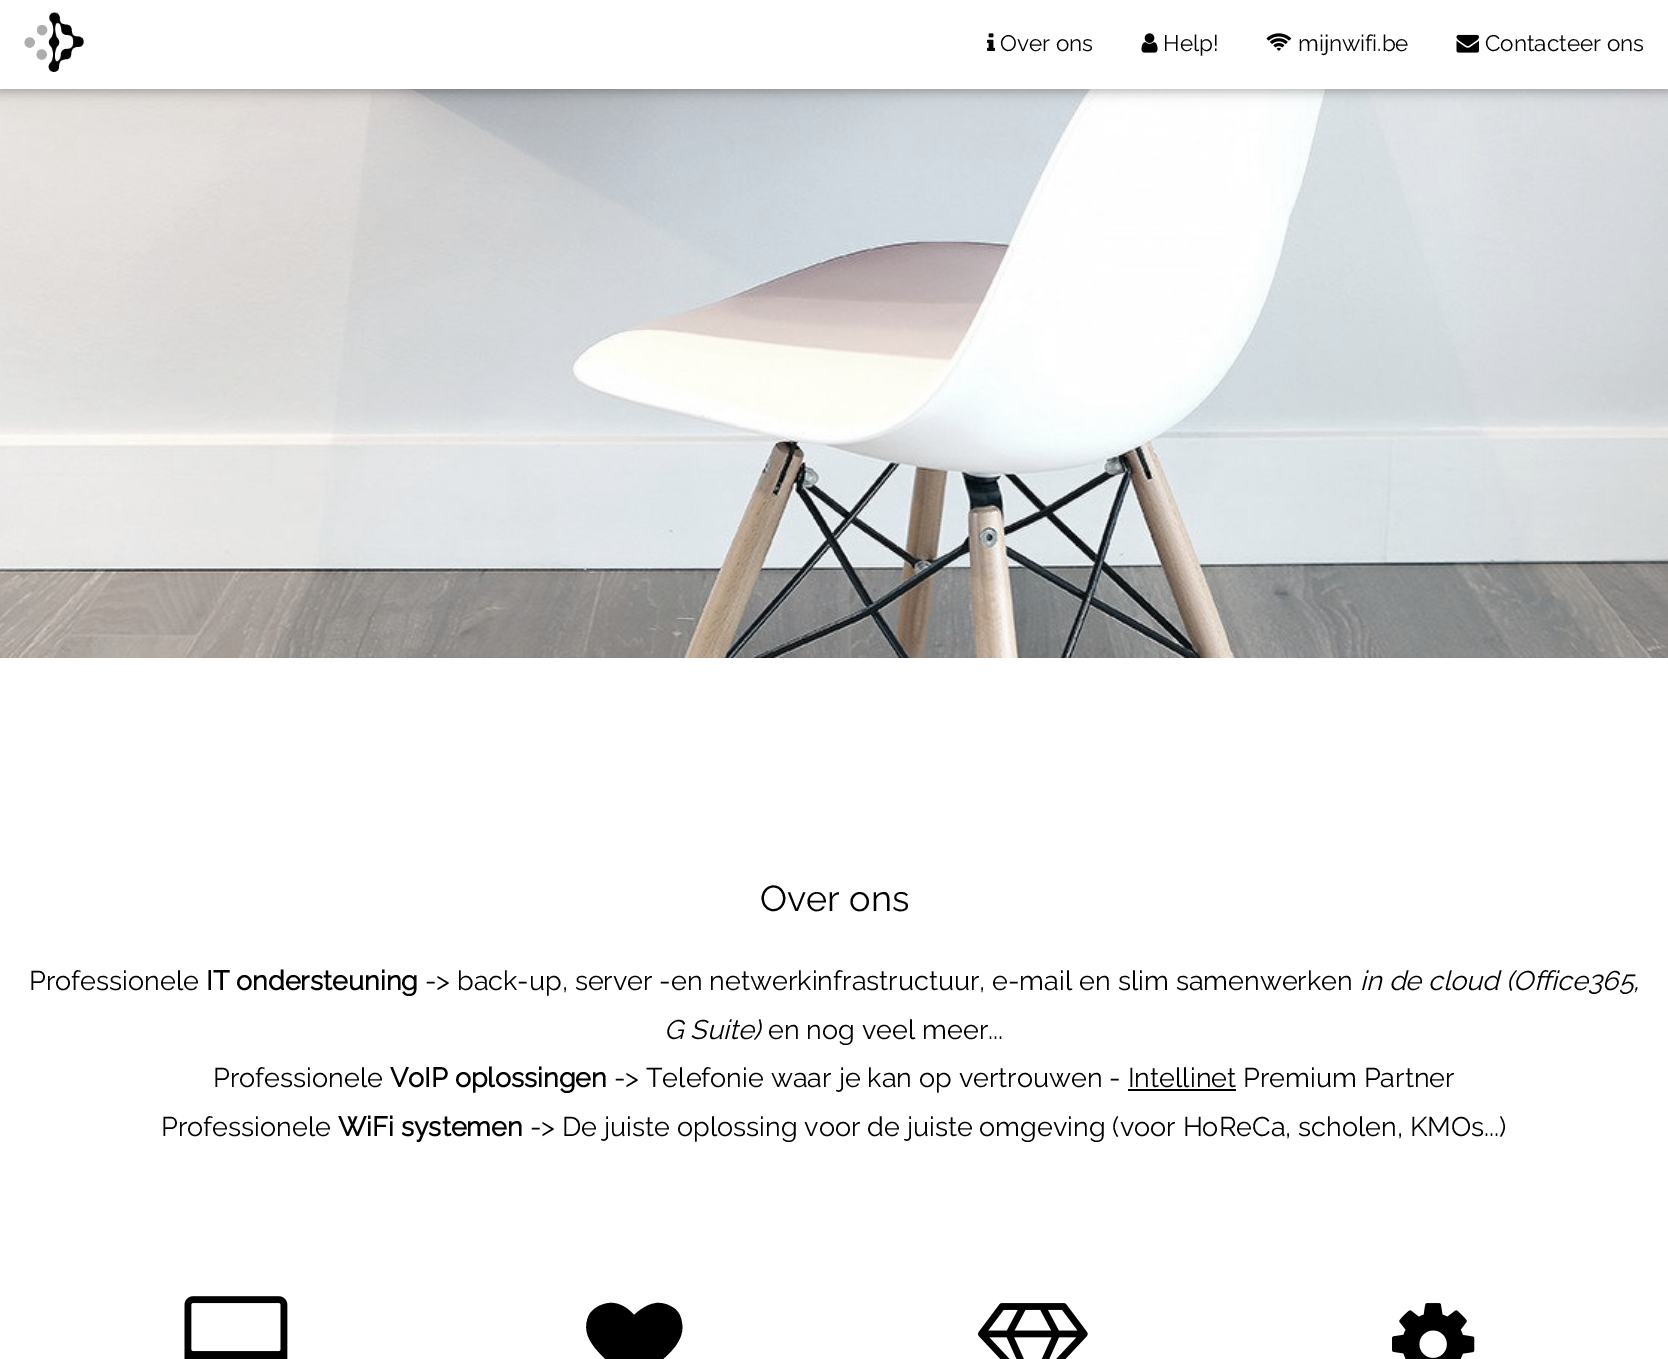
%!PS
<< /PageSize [1668 1359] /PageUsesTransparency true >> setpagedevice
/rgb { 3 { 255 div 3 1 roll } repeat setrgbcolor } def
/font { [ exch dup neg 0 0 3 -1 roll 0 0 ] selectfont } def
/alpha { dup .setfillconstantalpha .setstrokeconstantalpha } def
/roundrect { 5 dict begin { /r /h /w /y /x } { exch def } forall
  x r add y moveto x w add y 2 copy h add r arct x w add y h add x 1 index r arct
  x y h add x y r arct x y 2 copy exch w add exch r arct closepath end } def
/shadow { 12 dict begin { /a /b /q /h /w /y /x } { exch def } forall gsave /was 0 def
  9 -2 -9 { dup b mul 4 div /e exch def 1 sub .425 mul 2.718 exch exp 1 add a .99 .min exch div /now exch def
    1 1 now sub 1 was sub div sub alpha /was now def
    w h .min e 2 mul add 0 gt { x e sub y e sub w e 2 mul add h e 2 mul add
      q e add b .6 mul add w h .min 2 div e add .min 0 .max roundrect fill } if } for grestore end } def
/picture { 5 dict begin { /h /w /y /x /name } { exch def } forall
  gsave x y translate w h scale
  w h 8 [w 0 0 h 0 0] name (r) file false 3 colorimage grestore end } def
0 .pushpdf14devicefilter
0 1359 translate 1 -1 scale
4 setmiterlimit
255 255 255 rgb
0 0 1668 1359 rectfill
(img/6.rgb) 0 89 1668 569 picture
0 0 0 rgb
0 3 1668 89 0 7.5 0.12 shadow
0 3 1668 89 0 4 0.16 shadow
255 255 255 rgb
0 0 1668 89 rectfill
(img/1.rgb) 24 12 60 60 picture
(img/2.rgb) 987 33 9 18 picture
(img/3.rgb) 1141 33 17 20 picture
(img/4.rgb) 1266 33 26 18 picture
(img/5.rgb) 1456 34 23 19 picture
0 0 0 rgb
1128 1089 108 2 rectfill
(img/7.rgb) 184 1296 104 63 picture
637 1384 moveto 636 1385 634 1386 633 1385 curveto 615 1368 lineto 602 1355 578 1338 589 1315 curveto 593 1308 601 1304 609 1303 curveto 619 1302 628 1308 634 1315 curveto 645 1305 658 1298 672 1307 curveto 678 1310 681 1316 682 1323 curveto 683 1329 682 1335 679 1340 curveto 675 1349 666 1356 659 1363 curveto closepath fill
(img/8.rgb) 978 1303 110 56 picture
(img/9.rgb) 1392 1303 83 56 picture
/Raleway-Thin 22.5 font
[
  [(Over ons) 1000 51]
  [(Help!) 1163 51]
  [(mijnwifi.be) 1298 51]
  [(Contacteer ons) 1485 51]
] { aload pop moveto show } forall
/Raleway-Thin 36 font
760 911 moveto (Over ons) show
/Raleway-Thin 27 font
29 990 moveto (Professionele) show
/Raleway-Bold 27 font
206 990 moveto (IT ondersteuning) show
/Raleway-Thin 27 font
425 990 moveto (-> back-up, server -en netwerkinfrastructuur, e-mail en slim samenwerken) show
/Raleway-ThinItalic 27 font
1360 990 moveto (in de cloud \(Office365,) show
664 1039 moveto (G Suite\)) show
/Raleway-Thin 27 font
768 1039 moveto (en nog veel meer...) show
213 1087 moveto (Professionele) show
/Raleway-Bold 27 font
390 1087 moveto (VoIP oplossingen) show
/Raleway-Thin 27 font
614 1087 moveto (-> Telefonie waar je kan op vertrouwen - Intellinet Premium Partner) show
161 1136 moveto (Professionele) show
/Raleway-Bold 27 font
338 1136 moveto (WiFi systemen) show
/Raleway-Thin 27 font
530 1136 moveto (-> De juiste oplossing voor de juiste omgeving \(voor HoReCa, scholen, KMOs...\)) show
.poppdf14devicefilter showpage
